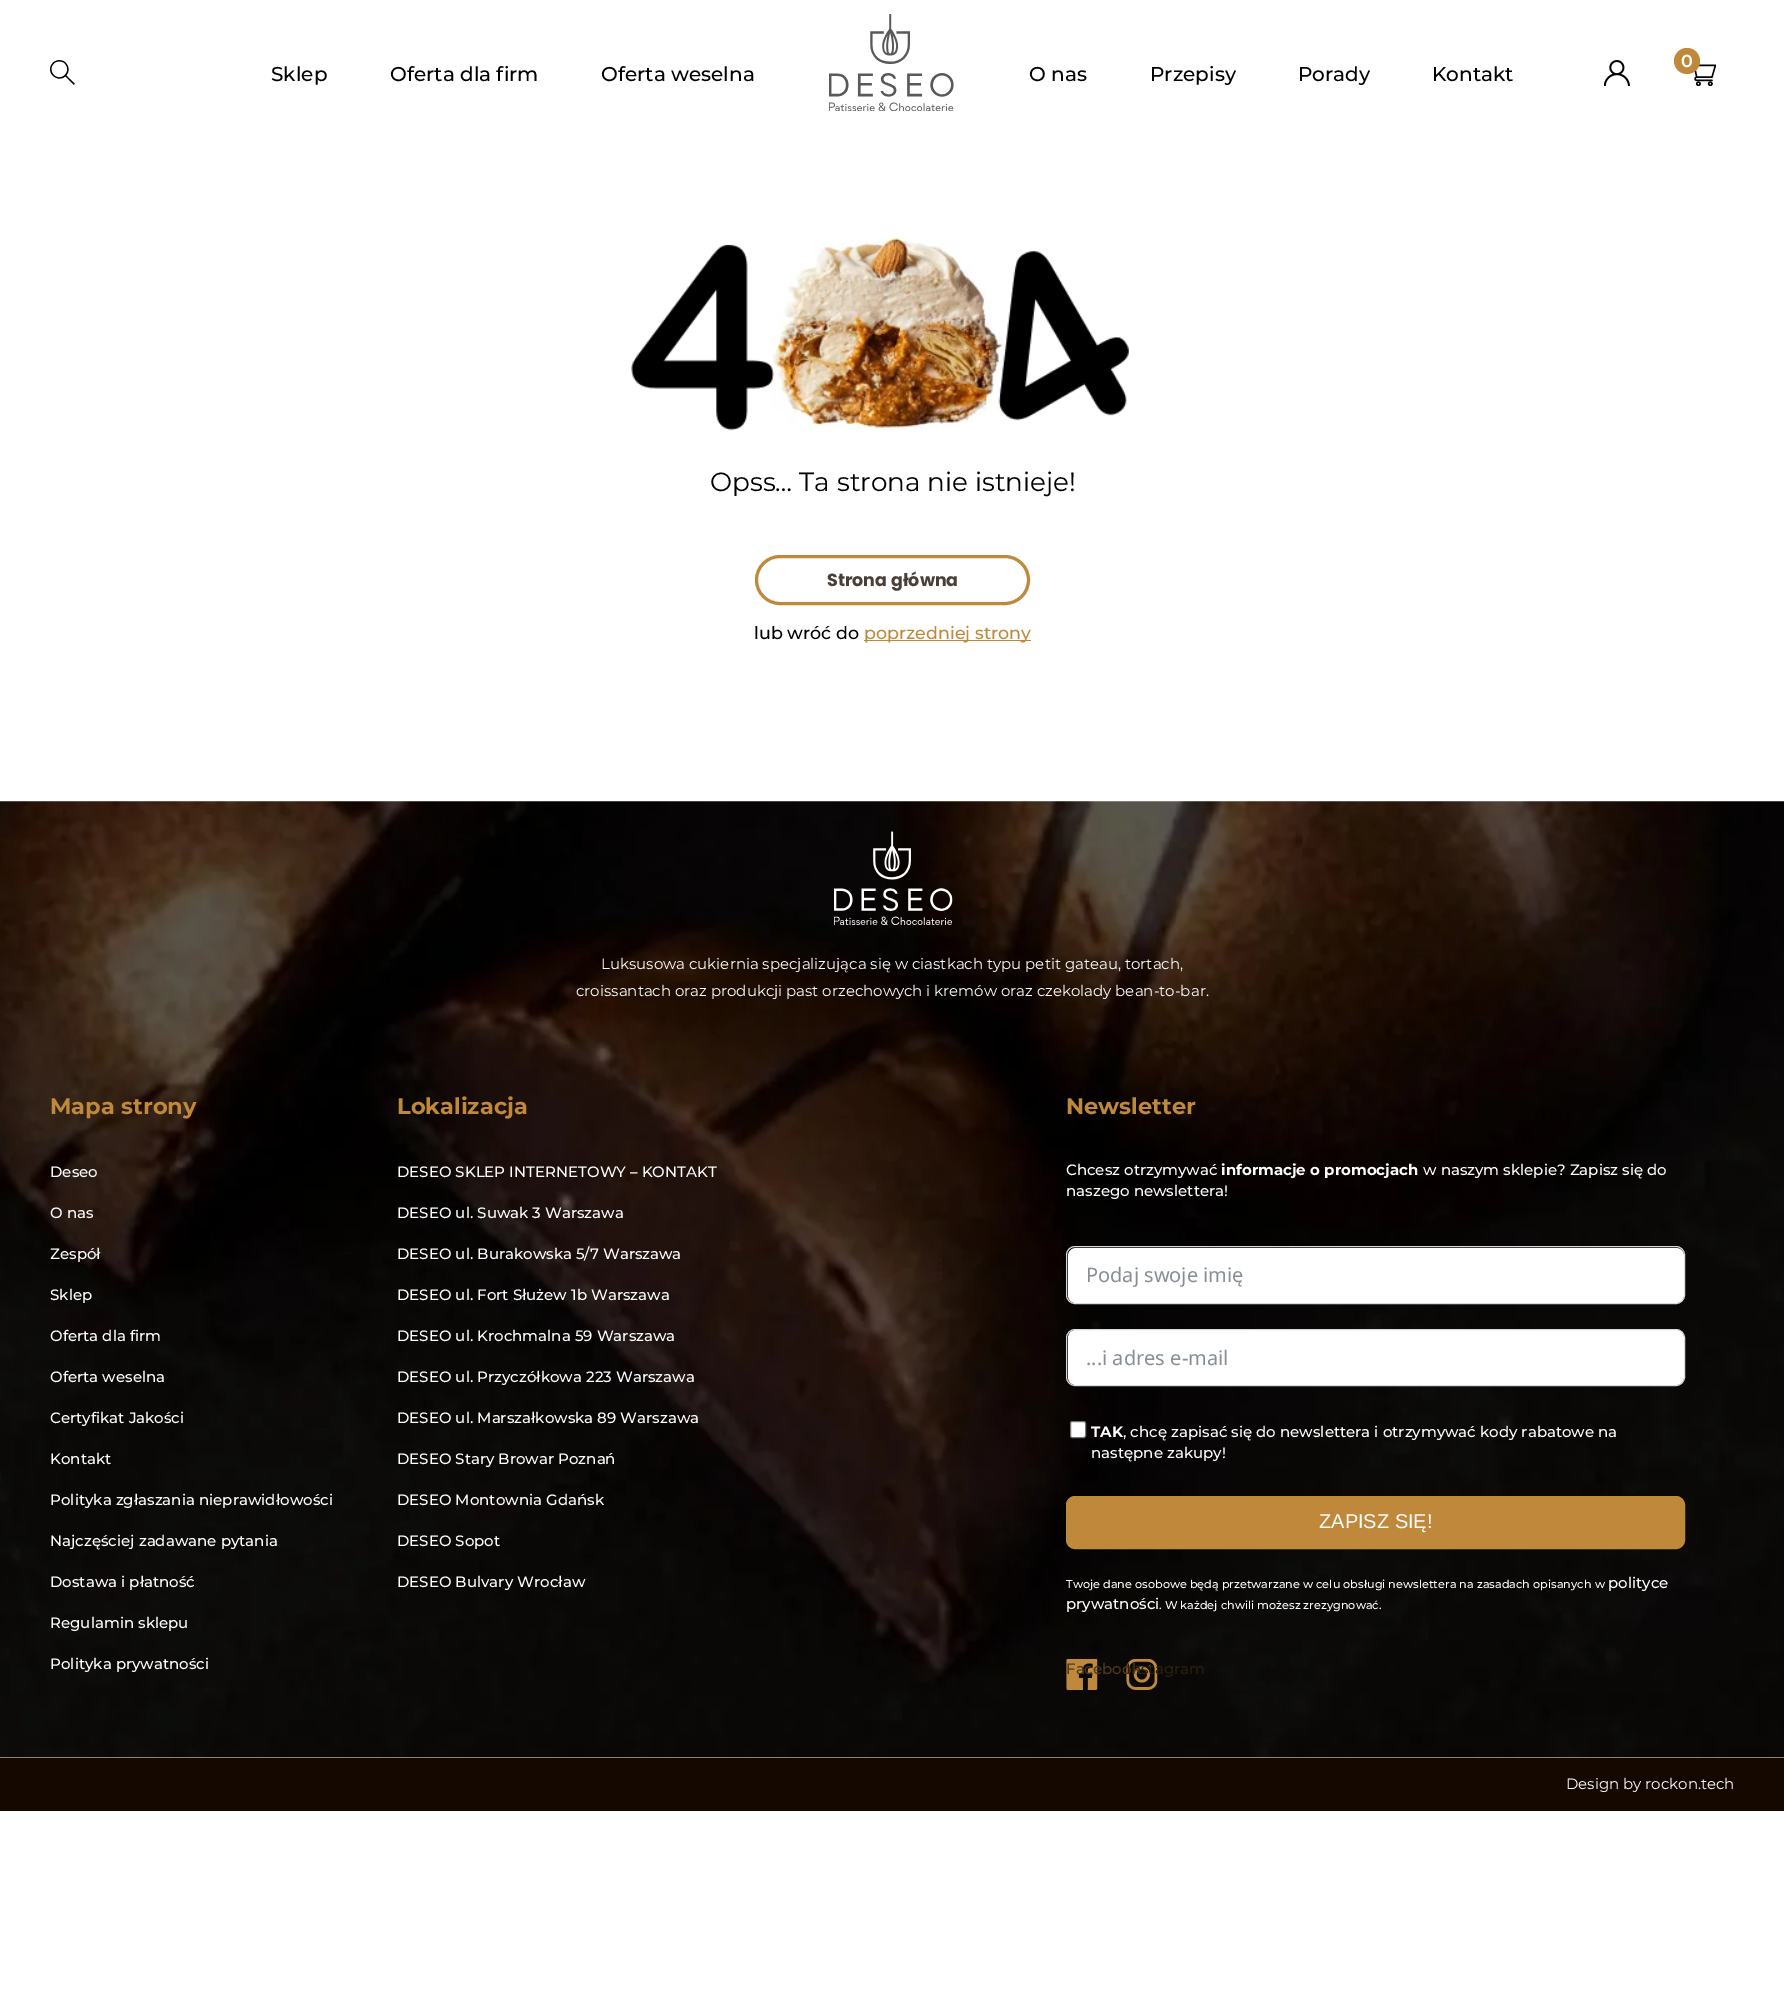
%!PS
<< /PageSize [1784 1998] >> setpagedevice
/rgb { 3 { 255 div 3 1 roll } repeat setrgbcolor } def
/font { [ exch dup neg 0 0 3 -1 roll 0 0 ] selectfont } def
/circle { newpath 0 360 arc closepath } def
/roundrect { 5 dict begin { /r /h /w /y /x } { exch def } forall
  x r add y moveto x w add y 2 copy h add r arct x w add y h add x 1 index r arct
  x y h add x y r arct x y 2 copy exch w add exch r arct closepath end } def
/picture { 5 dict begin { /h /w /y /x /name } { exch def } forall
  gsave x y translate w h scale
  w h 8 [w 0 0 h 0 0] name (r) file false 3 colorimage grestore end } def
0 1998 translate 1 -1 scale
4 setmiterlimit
255 255 255 rgb
0 0 1784 1998 rectfill
(img/1.rgb) 50 60 25 25 picture
(img/2.rgb) 829 14 125 97 picture
(img/3.rgb) 1604 60 26 26 picture
(img/4.rgb) 1694 64 22 22 picture
191 136 59 rgb
1687 61 13 circle fill
(img/5.rgb) 631 237 498 194 picture
3 setlinewidth
756.5 556.5 272 47 23.5 roundrect stroke
864 640 167 1 rectfill
(img/6.rgb) 0 801 1784 957 picture
(img/7.rgb) 834 831 119 94 picture
255 255 255 rgb
1068 1248 616 55 8 roundrect fill
218 219 221 rgb
1 setlinewidth
1066.5 1246.5 618 57 8.5 roundrect stroke
255 255 255 rgb
1068 1330 616 55 8 roundrect fill
218 219 221 rgb
1066.5 1329.5 618 56 8.5 roundrect stroke
255 255 255 rgb
1070.5 1421.5 15 16 2 roundrect gsave fill grestore
118 118 118 rgb
stroke
191 136 59 rgb
1066.5 1496.5 618 52 8.5 roundrect gsave fill grestore
stroke
(img/8.rgb) 1066 1659 32 31 picture
(img/9.rgb) 1126 1659 32 31 picture
21 8 1 rgb
0 1758 1784 53 rectfill
/Montserrat-Medium 20 font
0 0 0 rgb
[
  [(Sklep) 271 81]
  [(Oferta dla firm) 390 81]
  [(Oferta weselna) 601 81]
  [(O nas) 1029 81]
  [(Przepisy) 1150 81]
  [(Porady) 1298 81]
  [(Kontakt) 1432 81]
] { aload pop moveto show } forall
/Montserrat-SemiBold 17.5 font
255 255 255 rgb
1681 67 moveto (0) show
/Montserrat-Regular 26.25 font
0 0 0 rgb
710 491 moveto (Opss… Ta strona nie istnieje!) show
/Poppins-Bold 17.5 font
73 63 57 rgb
827 586 moveto (Strona główna) show
/Montserrat-Medium 17.5 font
0 0 0 rgb
754 639 moveto (lub wróć do) show
191 136 59 rgb
864 639 moveto (poprzedniej strony) show
/Montserrat-Regular 15 font
255 255 255 rgb
601 969 moveto (Luksusowa cukiernia specjalizująca się w ciastkach typu petit gateau, tortach,) show
576 996 moveto (croissantach oraz produkcji past orzechowych i kremów oraz czekolady bean-to-bar.) show
/Montserrat-Bold 22.5 font
191 136 59 rgb
50 1114 moveto (Mapa strony) show
/Montserrat-Medium 15 font
255 255 255 rgb
[
  [(Deseo) 50 1177]
  [(O nas) 50 1218]
  [(Zespół) 50 1259]
  [(Sklep) 50 1300]
  [(Oferta dla firm) 50 1341]
  [(Oferta weselna) 50 1382]
  [(Certyfikat Jakości) 50 1423]
  [(Kontakt) 50 1464]
  [(Polityka zgłaszania nieprawidłowości) 50 1505]
  [(Najczęściej zadawane pytania) 50 1546]
  [(Dostawa i płatność) 50 1587]
  [(Regulamin sklepu) 50 1628]
  [(Polityka prywatności) 50 1669]
] { aload pop moveto show } forall
/Montserrat-Bold 22.5 font
191 136 59 rgb
397 1114 moveto (Lokalizacja) show
/Montserrat-Medium 15 font
255 255 255 rgb
[
  [(DESEO SKLEP INTERNETOWY – KONTAKT) 397 1177]
  [(DESEO ul. Suwak 3 Warszawa) 397 1218]
  [(DESEO ul. Burakowska 5/7 Warszawa) 397 1259]
  [(DESEO ul. Fort Służew 1b Warszawa) 397 1300]
  [(DESEO ul. Krochmalna 59 Warszawa) 397 1341]
  [(DESEO ul. Przyczółkowa 223 Warszawa) 397 1382]
  [(DESEO ul. Marszałkowska 89 Warszawa) 397 1423]
  [(DESEO Stary Browar Poznań) 397 1464]
  [(DESEO Montownia Gdańsk) 397 1505]
  [(DESEO Sopot) 397 1546]
  [(DESEO Bulvary Wrocław) 397 1587]
] { aload pop moveto show } forall
/Montserrat-Bold 22.5 font
191 136 59 rgb
1066 1114 moveto (Newsletter) show
/Montserrat-Medium 15 font
255 255 255 rgb
1066 1175 moveto (Chcesz otrzymywać) show
/Montserrat-Bold 15 font
1221 1175 moveto (informacje o promocjach) show
/Montserrat-Medium 15 font
1423 1175 moveto (w naszym sklepie? Zapisz się do) show
1066 1196 moveto (naszego newslettera!) show
/NotoSans-Regular 20 font
134 142 150 rgb
1086 1282 moveto (Podaj swoje imię) show
1086 1365 moveto (...i adres e-mail) show
/Montserrat-Bold 15 font
255 255 255 rgb
1091 1437 moveto (TAK) show
/Montserrat-Medium 15 font
1123 1437 moveto (, chcę zapisać się do newslettera i otrzymywać kody rabatowe na) show
1091 1458 moveto (następne zakupy!) show
/LiberationSans-Regular 20 font
1319 1528 moveto (ZAPISZ SIĘ!) show
/Montserrat-Medium 11.25 font
1066 1588 moveto (Twoje dane osobowe będą przetwarzane w celu obsługi newslettera na zasadach opisanych w) show
/Montserrat-Medium 15 font
1608 1588 moveto (polityce) show
1066 1609 moveto (prywatności) show
/Montserrat-Medium 11.25 font
1159 1609 moveto (. W każdej chwili możesz zrezygnować.) show
/Montserrat-Medium 15 font
78 56 26 rgb
1066 1674 moveto (Facebook) show
42 31 16 rgb
1126 1674 moveto (Instagram) show
/Montserrat-Regular 15 font
255 255 255 rgb
1566 1789 moveto (Design by rockon.tech) show
showpage
